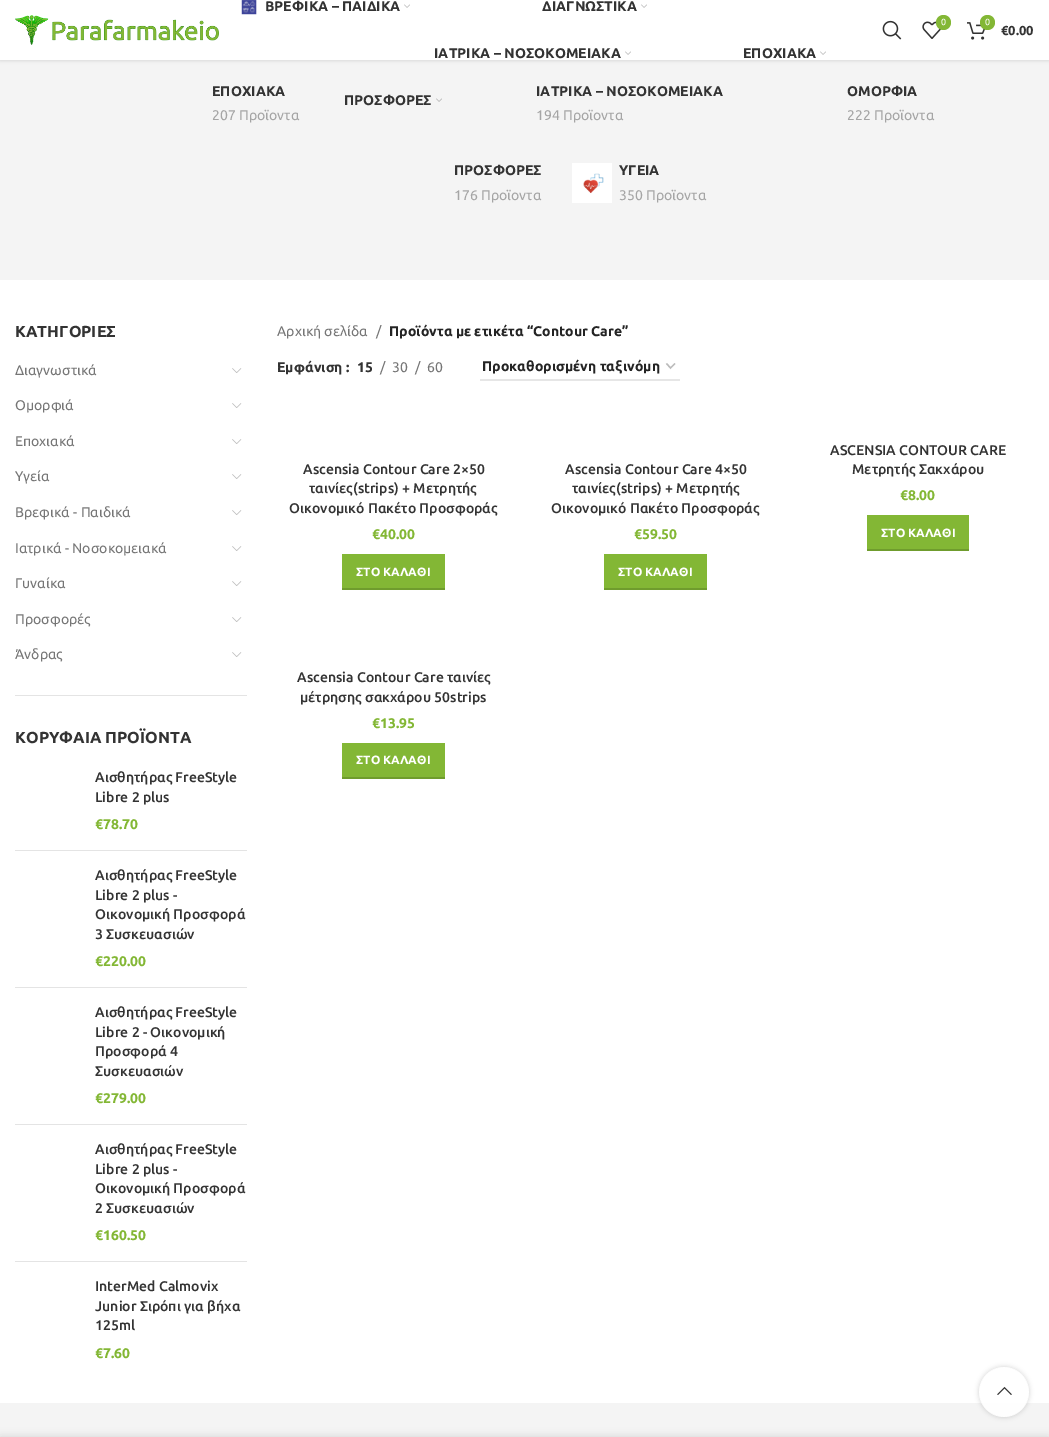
%!PS
<< /PageSize [1049 1437] /PageUsesTransparency true >> setpagedevice
/rgb { 3 { 255 div 3 1 roll } repeat setrgbcolor } def
/font { [ exch dup neg 0 0 3 -1 roll 0 0 ] selectfont } def
/alpha { dup .setfillconstantalpha .setstrokeconstantalpha } def
/circle { newpath 0 360 arc closepath } def
/roundrect { 5 dict begin { /r /h /w /y /x } { exch def } forall
  x r add y moveto x w add y 2 copy h add r arct x w add y h add x 1 index r arct
  x y h add x y r arct x y 2 copy exch w add exch r arct closepath end } def
/shadow { 12 dict begin { /a /b /q /h /w /y /x } { exch def } forall gsave /was 0 def
  9 -2 -9 { dup b mul 4 div /e exch def 1 sub .425 mul 2.718 exch exp 1 add a .99 .min exch div /now exch def
    1 1 now sub 1 was sub div sub alpha /was now def
    w h .min e 2 mul add 0 gt { x e sub y e sub w e 2 mul add h e 2 mul add
      q e add b .6 mul add w h .min 2 div e add .min 0 .max roundrect fill } if } for grestore end } def
/picture { 5 dict begin { /h /w /y /x /name } { exch def } forall
  gsave x y translate w h scale
  w h 8 [w 0 0 h 0 0] name (r) file false 3 colorimage grestore end } def
0 .pushpdf14devicefilter
0 1437 translate 1 -1 scale
4 setmiterlimit
255 255 255 rgb
0 0 1049 1437 rectfill
244 244 244 rgb
0 60 1049 220 rectfill
0 0 0 rgb
0 1 1049 60 0 1.5 0.1 shadow
255 255 255 rgb
0 0 1049 60 rectfill
(img/1.rgb) 15 15 204 30 picture
(img/2.rgb) 241 0 16 15 picture
(img/3.rgb) 404 4 6 4 picture
(img/3.rgb) 641 4 6 4 picture
(img/3.rgb) 625 51 6 4 picture
(img/3.rgb) 820 51 6 4 picture
(img/4.rgb) 436 98 6 4 picture
(img/5.rgb) 882 20 20 20 picture
(img/6.rgb) 922 21 20 18 picture
131 183 53 rgb
943.5 22.5 7.5 circle fill
(img/7.rgb) 967 22 19 18 picture
987.5 22.5 7.5 circle fill
(img/8.rgb) 572 163 40 40 picture
228 228 228 rgb
15 695 232 1 rectfill
(img/9.rgb) 232 368 10 5 picture
(img/9.rgb) 232 403 10 5 picture
(img/9.rgb) 232 439 10 5 picture
(img/9.rgb) 232 474 10 5 picture
(img/9.rgb) 232 510 10 5 picture
(img/9.rgb) 232 546 10 5 picture
(img/9.rgb) 232 581 10 5 picture
(img/9.rgb) 232 617 10 5 picture
(img/9.rgb) 232 652 10 5 picture
[
  [15 850 232 1 228 228 228]
  [15 987 232 1 228 228 228]
  [15 1124 232 1 228 228 228]
  [15 1261 232 1 228 228 228]
] { aload pop rgb rectfill } forall
187 187 187 rgb
1.4 setlinewidth
666.5 363.5 moveto 670.5 368 lineto 675 363.5 lineto stroke
[
  [480 379 200 2 230 230 230]
  [342 554 103 34 131 183 53]
  [342 588 103 2 111 156 45]
  [604 554 103 34 131 183 53]
  [604 588 103 2 111 156 45]
  [867 515 102 34 131 183 53]
  [867 549 102 2 111 156 45]
  [342 743 103 34 131 183 53]
  [342 777 103 2 111 156 45]
  [0 1403 1049 34 244 244 244]
] { aload pop rgb rectfill } forall
gsave
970 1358 moveto 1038 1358 lineto 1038 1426 lineto 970 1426 lineto closepath 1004 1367 moveto 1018 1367 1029 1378 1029 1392 curveto 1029 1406 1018 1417 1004 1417 curveto 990 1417 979 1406 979 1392 curveto 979 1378 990 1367 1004 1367 curveto closepath eoclip newpath
0 0 0 rgb
979 1367 50 50 25 2.5 0.17 shadow
grestore
0.9 alpha
255 255 255 rgb
1004 1392 25 circle fill
1 alpha
(img/10.rgb) 997 1386 15 9 picture
0 0 0 rgb
0 1437 1049 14 0 4.5 0.14 shadow
/Ubuntu-Bold 14 font
51 51 51 rgb
[
  [(ΒΡΕΦΙΚΑ – ΠΑΙΔΙΚΑ) 265 11]
  [(ΔΙΑΓΝΩΣΤΙΚΑ) 542 11]
  [(ΙΑΤΡΙΚΑ – ΝΟΣΟΚΟΜΕΙΑΚΑ) 434 58]
  [(ΕΠΟΧΙΑΚΑ) 743 58]
  [(ΠΡΟΣΦΟΡΕΣ) 344 105]
] { aload pop moveto show } forall
/Ubuntu-Regular 9 font
255 255 255 rgb
941 25 moveto (0) show
985 25 moveto (0) show
/Ubuntu-Bold 13 font
51 51 51 rgb
1001 35 moveto (€0.00) show
/Ubuntu-Bold 14 font
212 96 moveto (ΕΠΟΧΙΑΚΑ) show
/Ubuntu-Regular 14 font
165 165 165 rgb
212 120 moveto (207 Προϊοντα) show
/Ubuntu-Bold 14 font
51 51 51 rgb
536 96 moveto (ΙΑΤΡΙΚΑ – ΝΟΣΟΚΟΜΕΙΑΚΑ) show
/Ubuntu-Regular 14 font
165 165 165 rgb
536 120 moveto (194 Προϊοντα) show
/Ubuntu-Bold 14 font
51 51 51 rgb
847 96 moveto (ΟΜΟΡΦΙΑ) show
/Ubuntu-Regular 14 font
165 165 165 rgb
847 120 moveto (222 Προϊοντα) show
/Ubuntu-Bold 14 font
51 51 51 rgb
454 175 moveto (ΠΡΟΣΦΟΡΕΣ) show
/Ubuntu-Regular 14 font
165 165 165 rgb
454 200 moveto (176 Προϊοντα) show
/Ubuntu-Bold 14 font
51 51 51 rgb
619 175 moveto (ΥΓΕΙΑ) show
/Ubuntu-Regular 14 font
165 165 165 rgb
619 200 moveto (350 Προϊοντα) show
/Ubuntu-Bold 16 font
51 51 51 rgb
15 337 moveto (ΚΑΤΗΓΟΡΙΕΣ) show
/Ubuntu-Regular 14 font
118 118 118 rgb
[
  [(Διαγνωστικά) 15 375]
  [(Ομορφιά) 15 410]
  [(Εποχιακά) 15 446]
  [(Υγεία) 15 481]
  [(Βρεφικά - Παιδικά) 15 517]
  [(Ιατρικά - Νοσοκομειακά) 15 553]
  [(Γυναίκα) 15 588]
  [(Προσφορές) 15 624]
  [(Άνδρας) 15 659]
] { aload pop moveto show } forall
/Ubuntu-Bold 16 font
51 51 51 rgb
15 743 moveto (ΚΟΡΥΦΑΙΑ ΠΡΟΪΟΝΤΑ) show
/Ubuntu-Medium 14 font
95 782 moveto (Αισθητήρας FreeStyle) show
95 802 moveto (Libre 2 plus) show
/Ubuntu-Bold 14 font
131 183 53 rgb
95 829 moveto (€78.70) show
/Ubuntu-Medium 14 font
51 51 51 rgb
[
  [(Αισθητήρας FreeStyle) 95 880]
  [(Libre 2 plus -) 95 900]
  [(Οικονομική Προσφορά) 95 919]
  [(3 Συσκευασιών) 95 939]
] { aload pop moveto show } forall
/Ubuntu-Bold 14 font
131 183 53 rgb
95 966 moveto (€220.00) show
/Ubuntu-Medium 14 font
51 51 51 rgb
[
  [(Αισθητήρας FreeStyle) 95 1017]
  [(Libre 2 - Οικονομική) 95 1037]
  [(Προσφορά 4) 95 1056]
  [(Συσκευασιών) 95 1076]
] { aload pop moveto show } forall
/Ubuntu-Bold 14 font
131 183 53 rgb
95 1103 moveto (€279.00) show
/Ubuntu-Medium 14 font
51 51 51 rgb
[
  [(Αισθητήρας FreeStyle) 95 1154]
  [(Libre 2 plus -) 95 1174]
  [(Οικονομική Προσφορά) 95 1193]
  [(2 Συσκευασιών) 95 1213]
] { aload pop moveto show } forall
/Ubuntu-Bold 14 font
131 183 53 rgb
95 1240 moveto (€160.50) show
/Ubuntu-Medium 14 font
51 51 51 rgb
[
  [(InterMed Calmovix) 95 1291]
  [(Junior Σιρόπι για βήχα) 95 1311]
  [(125ml) 95 1330]
] { aload pop moveto show } forall
/Ubuntu-Bold 14 font
131 183 53 rgb
95 1358 moveto (€7.60) show
/Ubuntu-Regular 14 font
118 118 118 rgb
277 336 moveto (Αρχική σελίδα) show
376 336 moveto (/) show
/Ubuntu-Bold 14 font
36 36 36 rgb
389 336 moveto (Προϊόντα με ετικέτα “Contour Care”) show
51 51 51 rgb
277 372 moveto (Εμφάνιση :) show
357 372 moveto (15) show
/Ubuntu-Regular 14 font
118 118 118 rgb
[
  [(/) 380 372]
  [(30) 392 372]
  [(/) 415 372]
  [(60) 427 372]
] { aload pop moveto show } forall
/Ubuntu-Bold 14 font
36 36 36 rgb
482 371 moveto (Προκαθορισμένη ταξινόμη) show
/Ubuntu-Medium 14 font
51 51 51 rgb
[
  [(Ascensia Contour Care 2×50) 303 474]
  [(ταινίες\(strips\) + Μετρητής) 309 493]
  [(Οικονομικό Πακέτο Προσφοράς) 289 513]
] { aload pop moveto show } forall
/Ubuntu-Bold 14 font
131 183 53 rgb
372 539 moveto (€40.00) show
/Ubuntu-Bold 12 font
255 255 255 rgb
356 576 moveto (ΣΤΟ ΚΑΛΑΘΙ) show
/Ubuntu-Medium 14 font
51 51 51 rgb
[
  [(Ascensia Contour Care 4×50) 565 474]
  [(ταινίες\(strips\) + Μετρητής) 572 493]
  [(Οικονομικό Πακέτο Προσφοράς) 551 513]
] { aload pop moveto show } forall
/Ubuntu-Bold 14 font
131 183 53 rgb
634 539 moveto (€59.50) show
/Ubuntu-Bold 12 font
255 255 255 rgb
618 576 moveto (ΣΤΟ ΚΑΛΑΘΙ) show
/Ubuntu-Medium 14 font
51 51 51 rgb
830 455 moveto (ASCENSIA CONTOUR CARE) show
852 474 moveto (Μετρητής Σακχάρου) show
/Ubuntu-Bold 14 font
131 183 53 rgb
900 500 moveto (€8.00) show
/Ubuntu-Bold 12 font
255 255 255 rgb
881 537 moveto (ΣΤΟ ΚΑΛΑΘΙ) show
/Ubuntu-Medium 14 font
51 51 51 rgb
297 682 moveto (Ascensia Contour Care ταινίες) show
300 702 moveto (μέτρησης σακχάρου 50strips) show
/Ubuntu-Bold 14 font
131 183 53 rgb
372 728 moveto (€13.95) show
/Ubuntu-Bold 12 font
255 255 255 rgb
356 764 moveto (ΣΤΟ ΚΑΛΑΘΙ) show
.poppdf14devicefilter showpage
